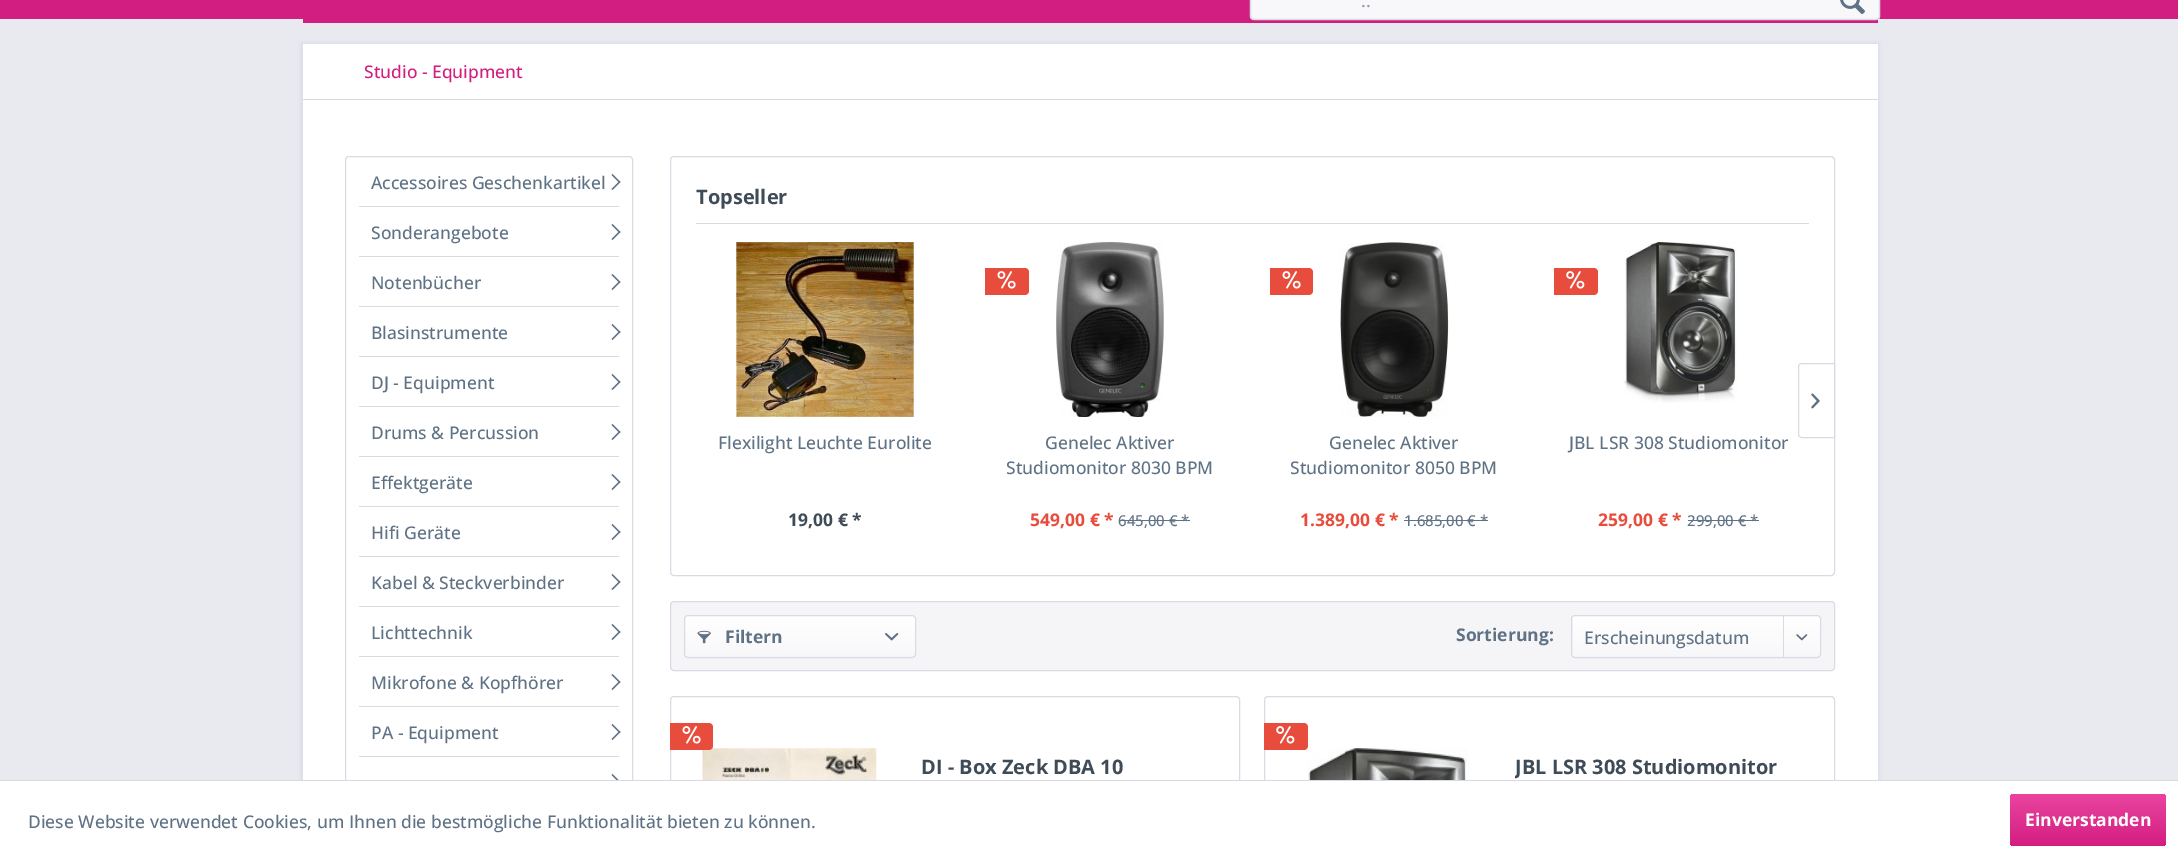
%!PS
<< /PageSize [2178 860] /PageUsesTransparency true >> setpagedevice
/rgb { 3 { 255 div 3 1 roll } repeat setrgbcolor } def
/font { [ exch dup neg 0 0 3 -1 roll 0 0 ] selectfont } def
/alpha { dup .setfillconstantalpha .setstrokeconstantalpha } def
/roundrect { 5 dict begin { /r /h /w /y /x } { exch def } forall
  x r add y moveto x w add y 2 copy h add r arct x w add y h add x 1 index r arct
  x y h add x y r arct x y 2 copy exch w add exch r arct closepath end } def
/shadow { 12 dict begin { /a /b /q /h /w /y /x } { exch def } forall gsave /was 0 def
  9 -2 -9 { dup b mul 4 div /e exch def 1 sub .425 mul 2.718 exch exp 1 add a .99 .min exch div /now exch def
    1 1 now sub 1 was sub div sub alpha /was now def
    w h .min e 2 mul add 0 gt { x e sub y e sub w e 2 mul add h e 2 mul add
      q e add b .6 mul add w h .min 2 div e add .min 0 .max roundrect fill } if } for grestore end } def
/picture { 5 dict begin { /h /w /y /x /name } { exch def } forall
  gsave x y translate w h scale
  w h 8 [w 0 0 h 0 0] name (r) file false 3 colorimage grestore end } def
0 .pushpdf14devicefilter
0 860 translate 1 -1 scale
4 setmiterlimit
233 233 240 rgb
0 0 2178 860 rectfill
211 30 129 rgb
0 0 2178 19 rectfill
303 19 1575 4 rectfill
248 248 250 rgb
1250 -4 630 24 4 roundrect fill
218 218 229 rgb
1.2 setlinewidth
1878.5 -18.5 moveto 1880 -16.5 1879.5 13 1879.5 16.5 curveto 1878.5 18.5 lineto 1876 19.5 lineto 1254 19.5 lineto 1251.5 18.5 lineto 1250.5 16.5 lineto 1250.5 13 1250 -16.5 1251.5 -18.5 curveto stroke
(img/1.rgb) 1840 0 25 14 picture
301 43 1578 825 0 2.5 1 shadow
255 255 255 rgb
303 44 1575 736 rectfill
218 218 229 rgb
303 99 1575 1 rectfill
1 setlinewidth
345.5 156.5 287 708 3.5 roundrect stroke
359 206 260 1 rectfill
95 114 133 rgb
611.5 175 moveto 612.5 174 lineto 620.5 182 lineto 619.5 183 lineto closepath fill
611.5 189 moveto 619.5 181 lineto 620.5 182 lineto 612.5 190 lineto closepath fill
218 218 229 rgb
359 256 260 1 rectfill
95 114 133 rgb
611.5 225 moveto 612.5 224 lineto 620.5 232 lineto 619.5 233 lineto closepath fill
611.5 239 moveto 619.5 231 lineto 620.5 232 lineto 612.5 240 lineto closepath fill
218 218 229 rgb
359 306 260 1 rectfill
95 114 133 rgb
611.5 275 moveto 612.5 274 lineto 620.5 282 lineto 619.5 283 lineto closepath fill
611.5 289 moveto 619.5 281 lineto 620.5 282 lineto 612.5 290 lineto closepath fill
218 218 229 rgb
359 356 260 1 rectfill
95 114 133 rgb
611.5 325 moveto 612.5 324 lineto 620.5 332 lineto 619.5 333 lineto closepath fill
611.5 339 moveto 619.5 331 lineto 620.5 332 lineto 612.5 340 lineto closepath fill
218 218 229 rgb
359 406 260 1 rectfill
95 114 133 rgb
611.5 375 moveto 612.5 374 lineto 620.5 382 lineto 619.5 383 lineto closepath fill
611.5 389 moveto 619.5 381 lineto 620.5 382 lineto 612.5 390 lineto closepath fill
218 218 229 rgb
359 456 260 1 rectfill
95 114 133 rgb
611.5 425 moveto 612.5 424 lineto 620.5 432 lineto 619.5 433 lineto closepath fill
611.5 439 moveto 619.5 431 lineto 620.5 432 lineto 612.5 440 lineto closepath fill
218 218 229 rgb
359 506 260 1 rectfill
95 114 133 rgb
611.5 475 moveto 612.5 474 lineto 620.5 482 lineto 619.5 483 lineto closepath fill
611.5 489 moveto 619.5 481 lineto 620.5 482 lineto 612.5 490 lineto closepath fill
218 218 229 rgb
359 556 260 1 rectfill
95 114 133 rgb
611.5 525 moveto 612.5 524 lineto 620.5 532 lineto 619.5 533 lineto closepath fill
611.5 539 moveto 619.5 531 lineto 620.5 532 lineto 612.5 540 lineto closepath fill
218 218 229 rgb
359 606 260 1 rectfill
95 114 133 rgb
611.5 575 moveto 612.5 574 lineto 620.5 582 lineto 619.5 583 lineto closepath fill
611.5 589 moveto 619.5 581 lineto 620.5 582 lineto 612.5 590 lineto closepath fill
218 218 229 rgb
359 656 260 1 rectfill
95 114 133 rgb
611.5 625 moveto 612.5 624 lineto 620.5 632 lineto 619.5 633 lineto closepath fill
611.5 639 moveto 619.5 631 lineto 620.5 632 lineto 612.5 640 lineto closepath fill
218 218 229 rgb
359 706 260 1 rectfill
95 114 133 rgb
611.5 675 moveto 612.5 674 lineto 620.5 682 lineto 619.5 683 lineto closepath fill
611.5 689 moveto 619.5 681 lineto 620.5 682 lineto 612.5 690 lineto closepath fill
218 218 229 rgb
359 756 260 1 rectfill
95 114 133 rgb
611.5 725 moveto 612.5 724 lineto 620.5 732 lineto 619.5 733 lineto closepath fill
611.5 739 moveto 619.5 731 lineto 620.5 732 lineto 612.5 740 lineto closepath 611.5 775 moveto 612.5 774 lineto 620.5 782 lineto 619.5 783 lineto closepath fill
218 218 229 rgb
670.5 156.5 1164 419 3.5 roundrect stroke
696 223 1113 1 rectfill
1802 363.5 moveto 1834.5 363.5 lineto 1834.5 437.5 lineto 1802 437.5 lineto 1800 437.5 1798.5 436 1798.5 434 curveto 1798.5 367 lineto 1798.5 365 1800 363.5 1802 363.5 curveto closepath stroke
(img/2.rgb) 1811 393 9 16 picture
(img/3.rgb) 736 242 178 175 picture
231 76 60 rgb
985 268 moveto 1025 268 lineto 1027 268 1029 270 1029 272 curveto 1029 291 lineto 1029 293 1027 295 1025 295 curveto 985 295 lineto closepath fill
(img/4.rgb) 997 271 19 18 picture
(img/5.rgb) 1056 242 108 175 picture
95 114 133 rgb
1119 520 71 1 rectfill
231 76 60 rgb
1270 268 moveto 1309 268 lineto 1311 268 1313 270 1313 272 curveto 1313 291 lineto 1313 293 1311 295 1309 295 curveto 1270 295 lineto closepath fill
(img/4.rgb) 1282 271 19 18 picture
(img/6.rgb) 1340 242 109 175 picture
95 114 133 rgb
1404 520 84 1 rectfill
231 76 60 rgb
1554 268 moveto 1594 268 lineto 1596 268 1598 270 1598 272 curveto 1598 291 lineto 1598 293 1596 295 1594 295 curveto 1554 295 lineto closepath fill
(img/7.rgb) 1566 271 19 18 picture
(img/8.rgb) 1623 242 115 161 picture
95 114 133 rgb
1688 520 71 1 rectfill
245 245 248 rgb
670.5 601.5 1164 69 3.5 roundrect gsave fill grestore
218 218 229 rgb
stroke
gsave 685 616 230 40 2.5 roundrect clip newpath
<< /ShadingType 2 /ColorSpace /DeviceRGB /Coords [800 616 800 656] /Extend [true true] /Function << /FunctionType 2 /Domain [0 1] /C0 [1 1 1] /C1 [0.973 0.973 0.98] /N 1 >> >> shfill grestore
684.5 615.5 231 42 3.5 roundrect stroke
(img/9.rgb) 697 630 14 14 picture
(img/10.rgb) 885 633 14 8 picture
gsave 1573 616 247 40 2.5 roundrect clip newpath
<< /ShadingType 2 /ColorSpace /DeviceRGB /Coords [1696 616 1696 656] /Extend [true true] /Function << /FunctionType 2 /Domain [0 1] /C0 [1 1 1] /C1 [0.973 0.973 0.98] /N 1 >> >> shfill grestore
1571.5 615.5 249 42 3.5 roundrect stroke
1783 616 1 42 rectfill
(img/11.rgb) 1796 634 12 7 picture
670.5 696.5 569 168 3.5 roundrect stroke
(img/12.rgb) 702 748 175 32 picture
231 76 60 rgb
670 723 moveto 709 723 lineto 711 723 713 725 713 727 curveto 713 746 lineto 713 748 711 750 709 750 curveto 670 750 lineto closepath fill
(img/4.rgb) 682 726 19 18 picture
218 218 229 rgb
1264.5 696.5 570 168 3.5 roundrect stroke
231 76 60 rgb
1264 723 moveto 1304 723 lineto 1306 723 1308 725 1308 727 curveto 1308 746 lineto 1308 748 1306 750 1304 750 curveto 1264 750 lineto closepath fill
(img/7.rgb) 1276 726 19 18 picture
(img/13.rgb) 1308 748 161 32 picture
255 255 255 rgb
0 781 2178 79 rectfill
218 218 229 rgb
0 780 2178 1 rectfill
gsave 2010 794 156 52 4 roundrect clip newpath
<< /ShadingType 2 /ColorSpace /DeviceRGB /Coords [2088 794 2088 846] /Extend [true true] /Function << /FunctionType 2 /Domain [0 1] /C0 [0.918 0.267 0.624] /C1 [0.827 0.118 0.506] /N 1 >> >> shfill grestore
/OpenSans-Medium 17.5 font
135 152 169 rgb
1361 7 moveto (..) show
211 30 129 rgb
364 78 moveto (Studio - Equipment) show
95 114 133 rgb
[
  [(Accessoires Geschenkartikel) 371 189]
  [(Sonderangebote) 371 239]
  [(Notenbücher) 371 289]
  [(Blasinstrumente) 371 339]
  [(DJ - Equipment) 371 389]
  [(Drums & Percussion) 371 439]
  [(Effektgeräte) 371 489]
  [(Hifi Geräte) 371 539]
  [(Kabel & Steckverbinder) 371 589]
  [(Lichttechnik) 371 639]
  [(Mikrofone & Kopfhörer) 371 689]
  [(PA - Equipment) 371 739]
] { aload pop moveto show } forall
/OpenSans-Bold 20 font
63 76 88 rgb
696 204 moveto (Topseller) show
/OpenSans-Medium 17.5 font
95 114 133 rgb
718 449 moveto (Flexilight Leuchte Eurolite) show
/OpenSans-Bold 17.5 font
63 76 88 rgb
788 526 moveto (19,00 € *) show
/OpenSans-Medium 17.5 font
95 114 133 rgb
1045 449 moveto (Genelec Aktiver) show
1006 474 moveto (Studiomonitor 8030 BPM) show
/OpenSans-Bold 17.5 font
231 76 60 rgb
1030 526 moveto (549,00 € *) show
/OpenSans-Medium 15 font
95 114 133 rgb
1118 526 moveto (645,00 € *) show
/OpenSans-Medium 17.5 font
1329 449 moveto (Genelec Aktiver) show
1290 474 moveto (Studiomonitor 8050 BPM) show
/OpenSans-Bold 17.5 font
231 76 60 rgb
1300 526 moveto (1.389,00 € *) show
/OpenSans-Medium 15 font
95 114 133 rgb
1404 526 moveto (1.685,00 € *) show
/OpenSans-Medium 17.5 font
1569 449 moveto (JBL LSR 308 Studiomonitor) show
/OpenSans-Bold 17.5 font
231 76 60 rgb
1598 526 moveto (259,00 € *) show
/OpenSans-Medium 15 font
95 114 133 rgb
1687 526 moveto (299,00 € *) show
/OpenSans-Bold 17.5 font
725 643 moveto (Filtern) show
1456 641 moveto (Sortierung:) show
/OpenSans-Medium 17.5 font
1584 644 moveto (Erscheinungsdatum) show
/OpenSans-Bold 20 font
63 76 88 rgb
921 774 moveto (DI - Box Zeck DBA 10) show
gsave
1515 754 306 50 rectclip
1515 774 moveto (JBL LSR 308 Studiomonitor) show
grestore
/OpenSans-Medium 17.5 font
95 114 133 rgb
28 828 moveto (Diese Website verwendet Cookies, um Ihnen die bestmögliche Funktionalität bieten zu können.) show
/OpenSans-Bold 17.5 font
255 255 255 rgb
2025 826 moveto (Einverstanden) show
.poppdf14devicefilter showpage
